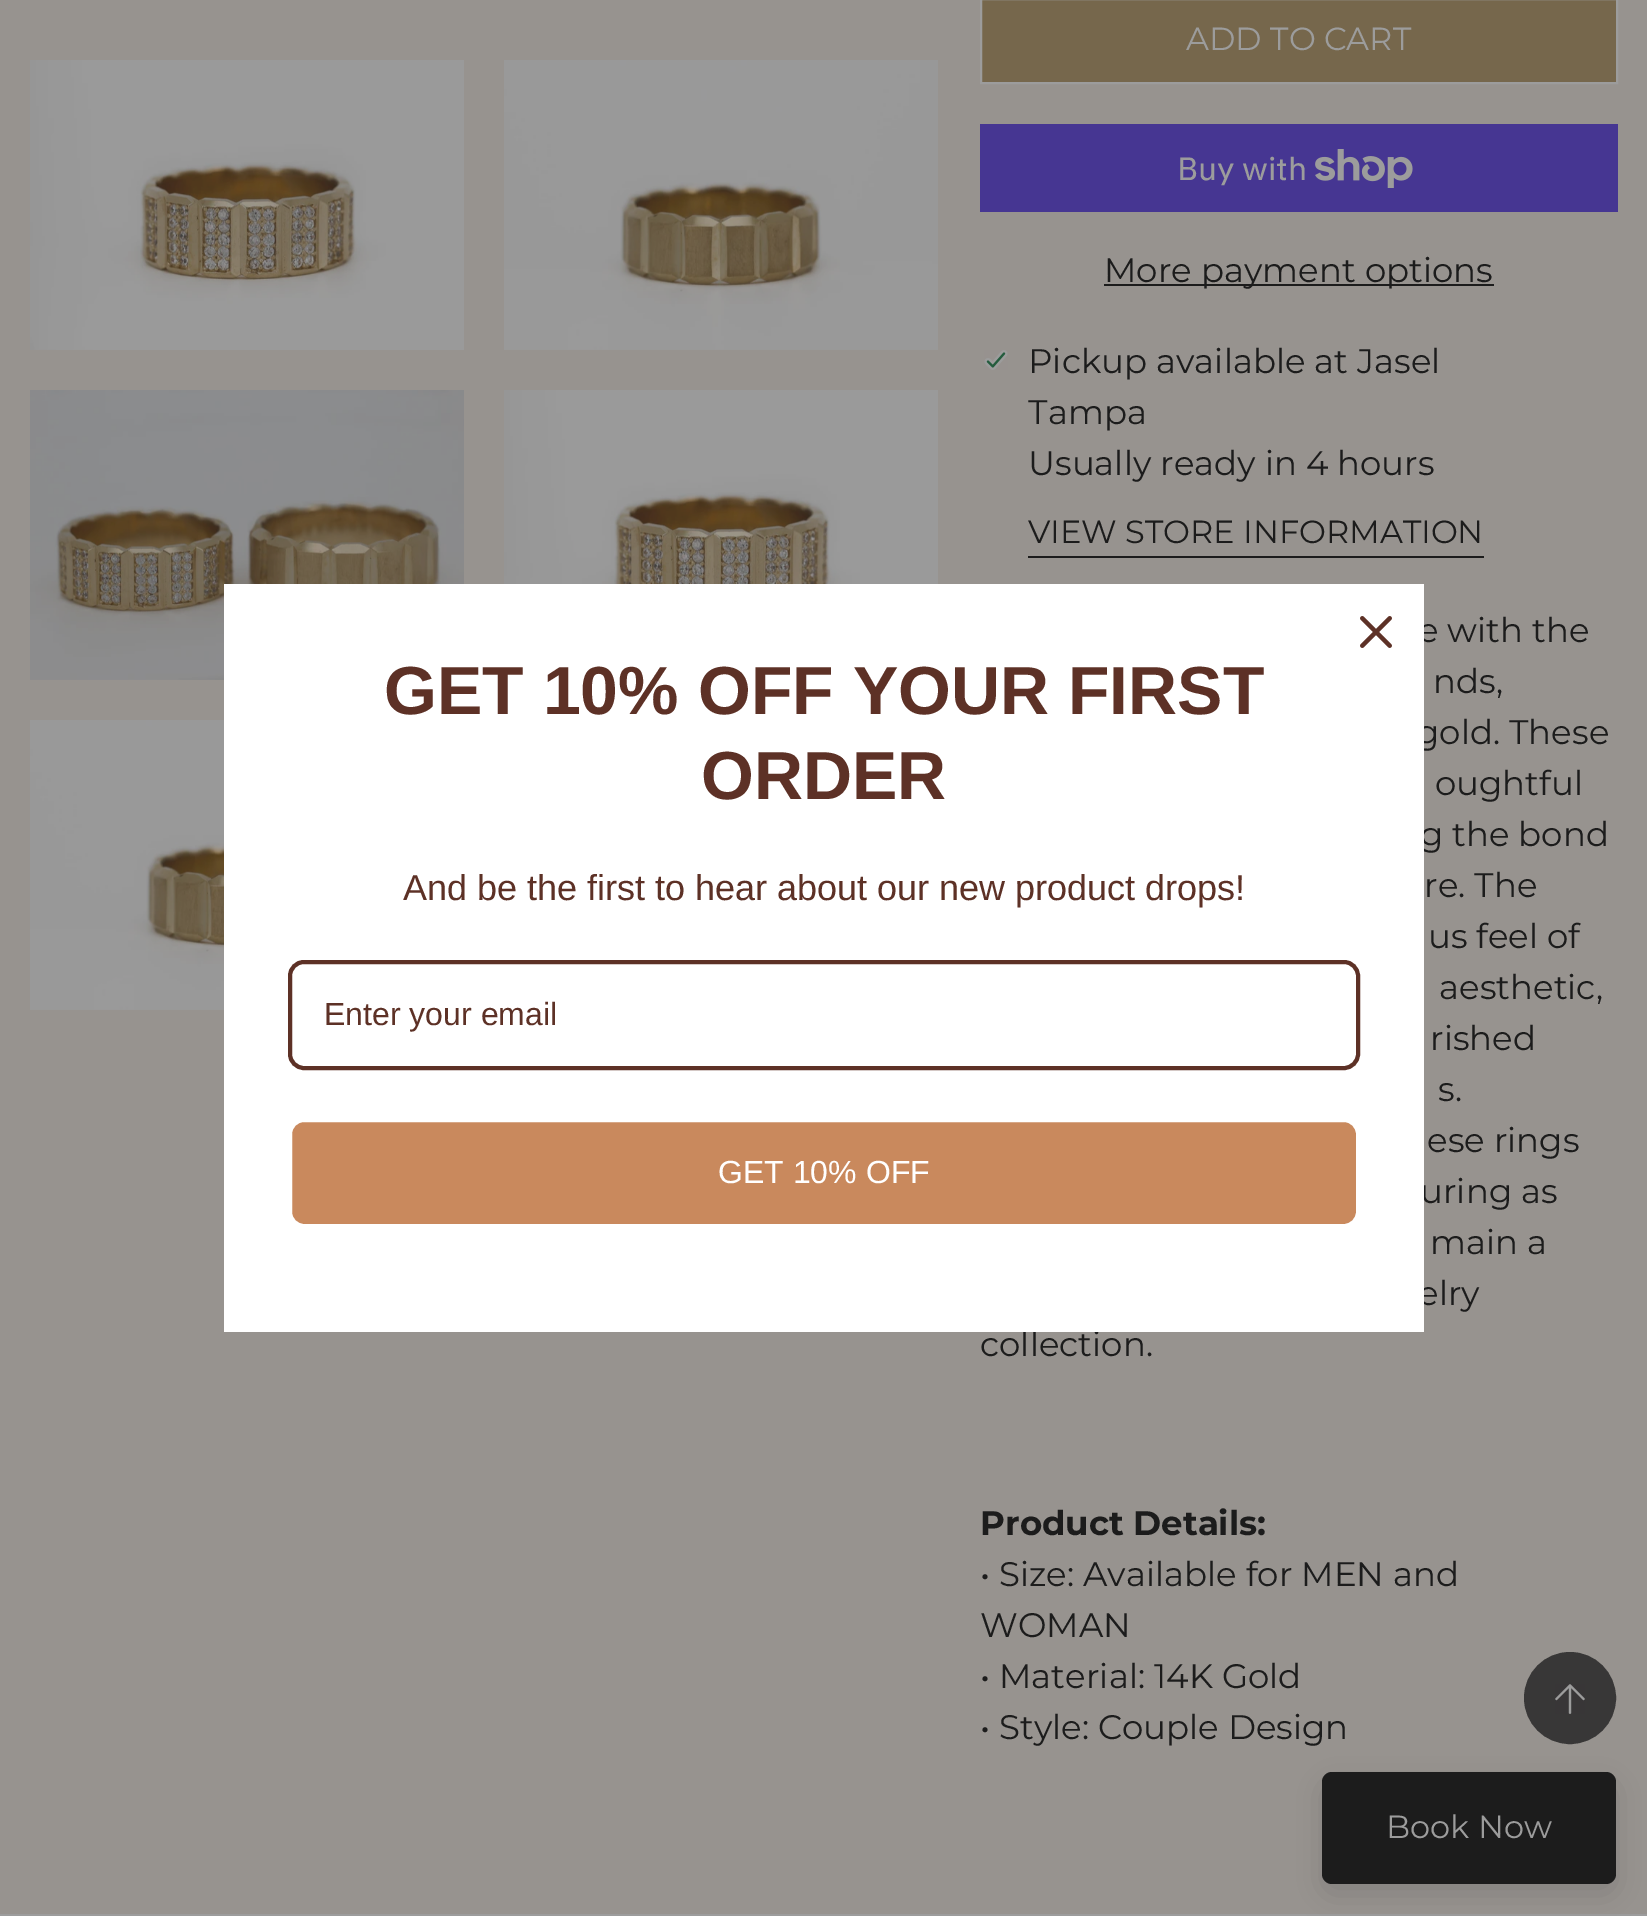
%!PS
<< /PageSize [1647 1916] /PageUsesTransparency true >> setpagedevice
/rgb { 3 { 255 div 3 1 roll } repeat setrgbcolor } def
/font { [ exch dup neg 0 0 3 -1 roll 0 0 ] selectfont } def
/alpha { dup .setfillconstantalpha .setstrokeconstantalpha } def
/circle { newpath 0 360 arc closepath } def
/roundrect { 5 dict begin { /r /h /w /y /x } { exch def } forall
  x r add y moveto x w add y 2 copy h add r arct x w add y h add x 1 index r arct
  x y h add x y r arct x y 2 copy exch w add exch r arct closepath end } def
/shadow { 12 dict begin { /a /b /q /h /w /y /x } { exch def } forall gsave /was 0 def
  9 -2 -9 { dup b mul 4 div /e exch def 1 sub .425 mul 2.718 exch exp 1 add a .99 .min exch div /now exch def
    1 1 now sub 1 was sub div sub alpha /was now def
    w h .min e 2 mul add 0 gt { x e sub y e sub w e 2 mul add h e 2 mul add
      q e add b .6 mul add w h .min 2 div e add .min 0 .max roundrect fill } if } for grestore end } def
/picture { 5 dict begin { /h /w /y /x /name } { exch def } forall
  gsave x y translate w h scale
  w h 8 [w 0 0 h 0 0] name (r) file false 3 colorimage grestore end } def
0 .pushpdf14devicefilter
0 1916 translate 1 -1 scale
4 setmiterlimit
151 147 143 rgb
0 0 1647 1916 rectfill
(img/2.rgb) 30 60 434 290 picture
(img/3.rgb) 504 60 434 290 picture
(img/4.rgb) 30 390 434 290 picture
(img/5.rgb) 504 390 434 194 picture
(img/6.rgb) 30 720 194 290 picture
118 103 76 rgb
981 -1 moveto 1617 -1 lineto 1617 83 lineto 981 83 lineto closepath gsave fill grestore
156 156 156 rgb
2 setlinewidth
stroke
70 54 146 rgb
980 124 638 88 rectfill
(img/7.rgb) 1315 149 98 39 picture
28 28 28 rgb
1104 284 390 2 rectfill
(img/8.rgb) 984 350 24 20 picture
1028 556 456 2 rectfill
56 55 55 rgb
1570 1698 45 circle gsave fill grestore
stroke
(img/9.rgb) 1555 1684 30 30 picture
156 156 156 rgb
0 1914 1647 2 rectfill
28 28 28 rgb
1322 1782 294 112 10 15 0.15 shadow
1322 1772 294 112 10 roundrect fill
/Montserrat-Regular 32 font
156 156 156 rgb
1186 50 moveto (ADD TO CART) show
/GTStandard-Regular 32 font
1177 180 moveto (Buy with) show
/Montserrat-Regular 34 font
28 28 28 rgb
[
  [(More payment options) 1104 282]
  [(Pickup available at Jasel) 1028 373]
  [(Tampa) 1028 424]
  [(Usually ready in 4 hours) 1028 475]
] { aload pop moveto show } forall
/Montserrat-Regular 32 font
1028 543 moveto (VIEW STORE INFORMATION) show
/Montserrat-Regular 34 font
[
  [(e with the) 1418 642]
  [(nds,) 1433 693]
  [(gold. These) 1416 744]
  [(oughtful) 1435 795]
  [(g the bond) 1420 846]
  [(re. The) 1424 897]
  [(us feel of) 1428 948]
  [(aesthetic,) 1439 999]
  [(rished) 1430 1050]
  [(s.) 1438 1101]
  [(ese rings) 1427 1152]
  [(uring as) 1420 1203]
  [(main a) 1430 1254]
  [(elry) 1418 1305]
  [(collection.) 980 1356]
] { aload pop moveto show } forall
255 255 255 rgb
224 584 1200 748 rectfill
(img/1.rgb) 1360 616 32 32 picture
201 137 93 rgb
290 1120 1068 106 14 roundrect gsave fill grestore
255 255 255 rgb
4 setlinewidth
stroke
/LiberationSans-Regular 32 font
718 1183 moveto (GET 10% OFF) show
93 49 38 rgb
290 962 1068 106 14 roundrect stroke
324 1025 moveto (Enter your email) show
/LiberationSans-Regular 36 font
403 900 moveto (And be the first to hear about our new product drops!) show
/LiberationSans-Bold 68 font
701 799 moveto (ORDER) show
384 714 moveto (GET 10% OFF YOUR FIRST) show
/Montserrat-Bold 34 font
28 28 28 rgb
980 1535 moveto (Product Details:) show
/Montserrat-Regular 34 font
[
  [(• Size: Available for MEN and) 980 1586]
  [(WOMAN) 980 1637]
  [(• Material: 14K Gold) 980 1688]
  [(• Style: Couple Design) 980 1739]
] { aload pop moveto show } forall
/Montserrat-Regular 32 font
156 156 156 rgb
1386 1838 moveto (Book Now) show
.poppdf14devicefilter showpage
